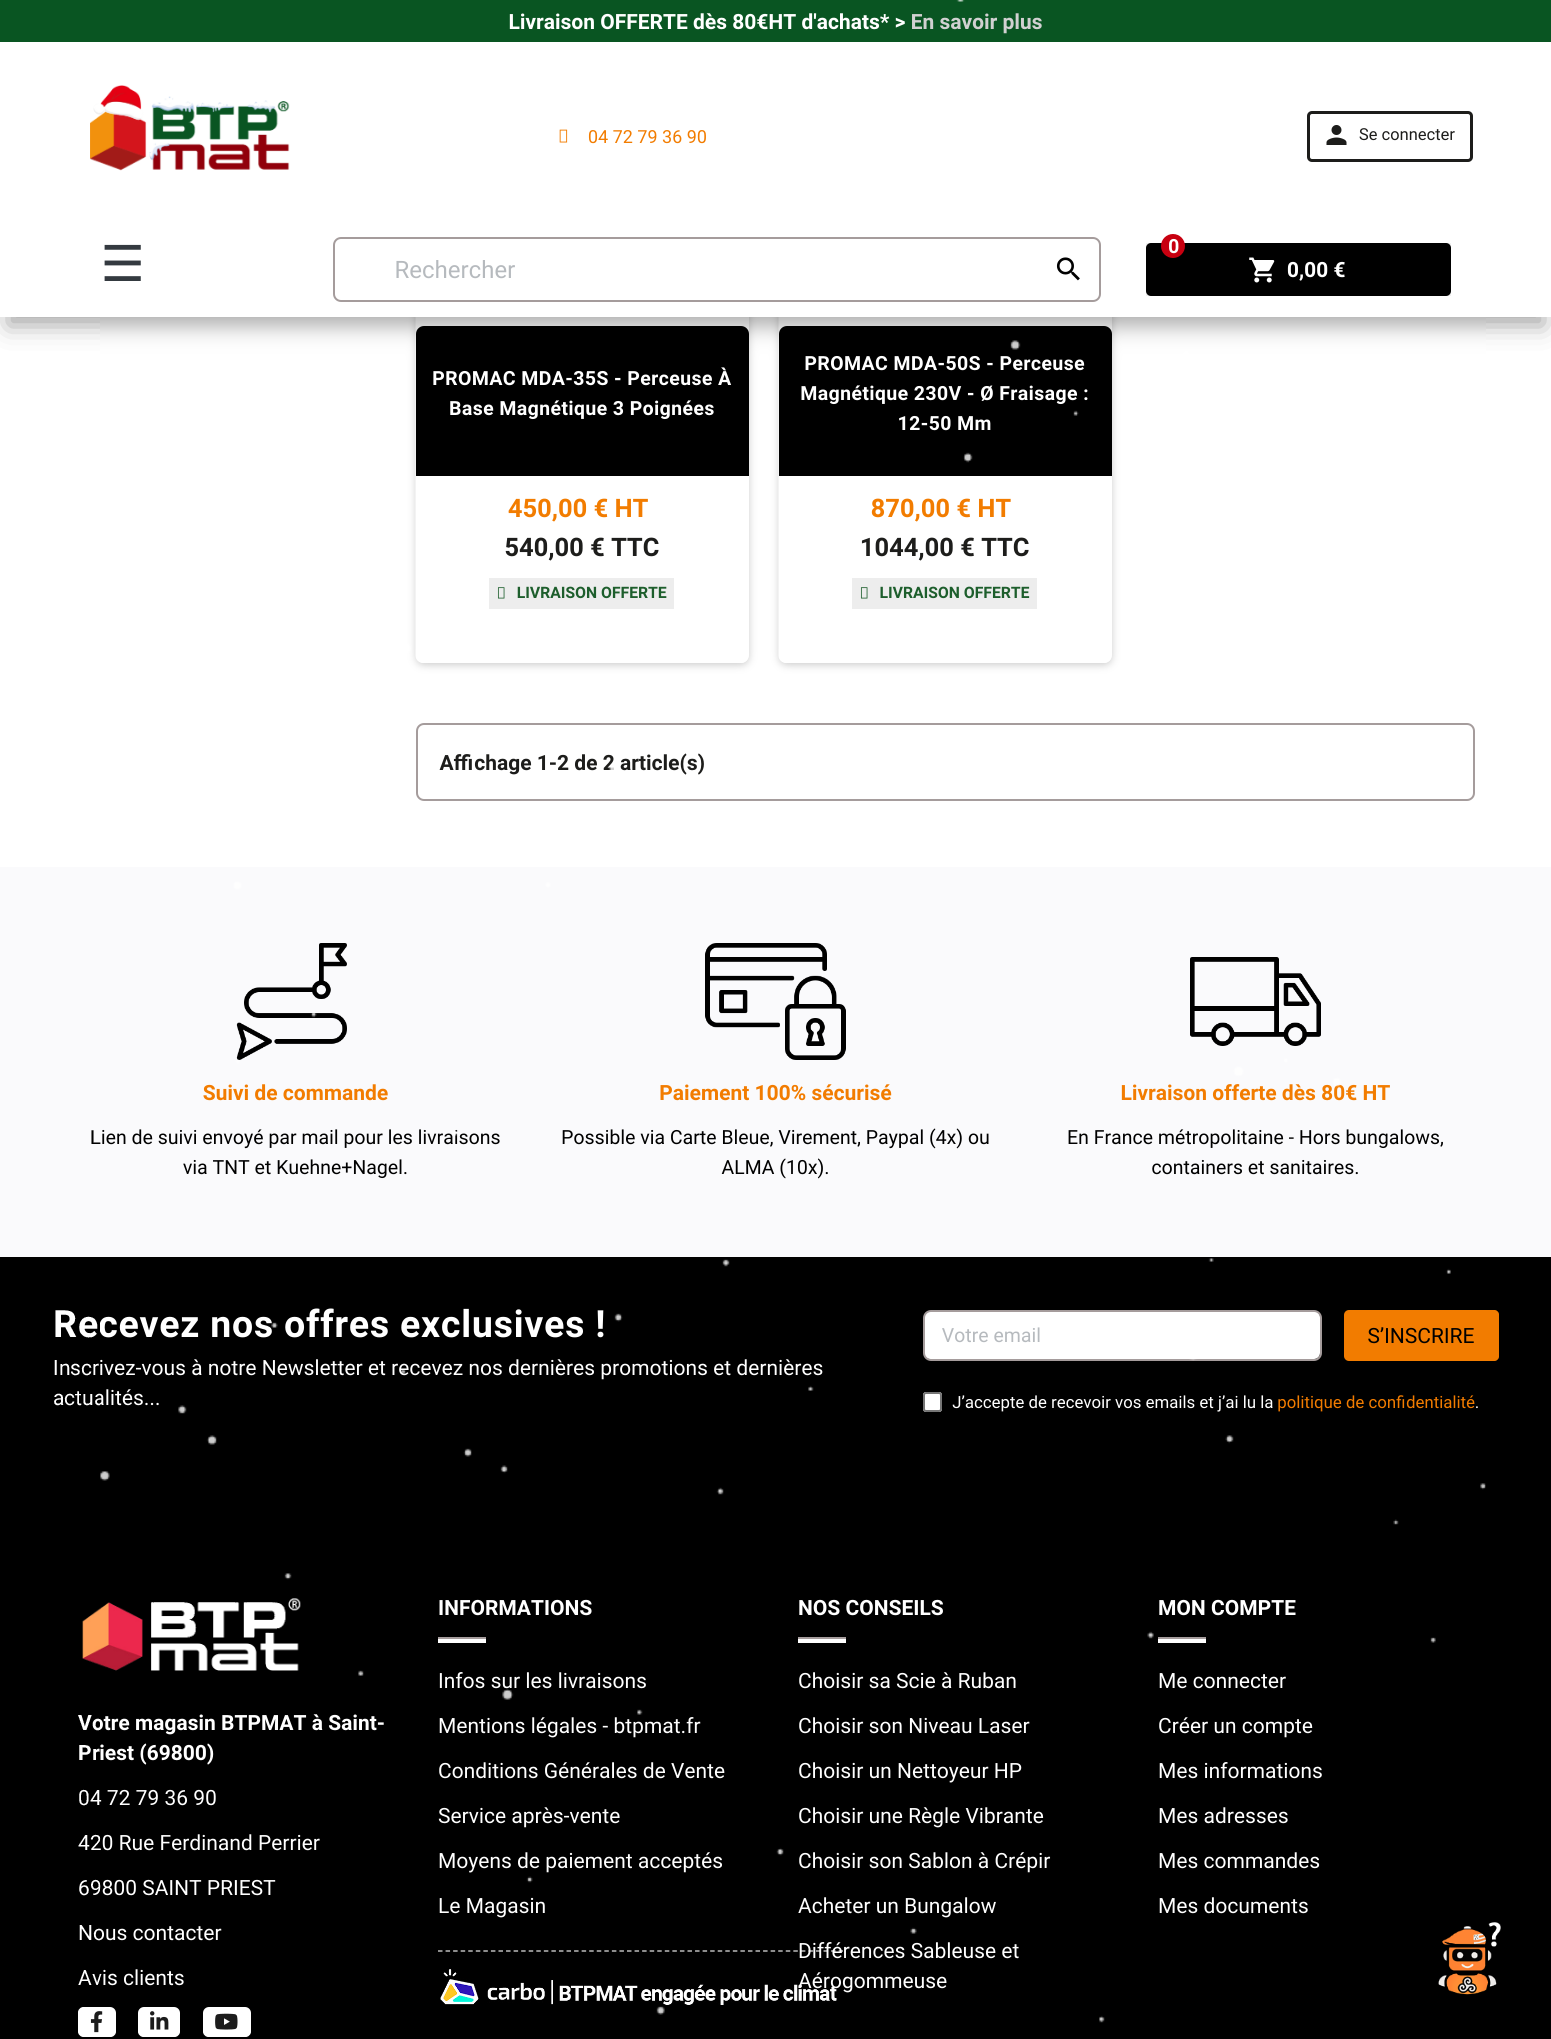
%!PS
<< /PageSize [1551 2039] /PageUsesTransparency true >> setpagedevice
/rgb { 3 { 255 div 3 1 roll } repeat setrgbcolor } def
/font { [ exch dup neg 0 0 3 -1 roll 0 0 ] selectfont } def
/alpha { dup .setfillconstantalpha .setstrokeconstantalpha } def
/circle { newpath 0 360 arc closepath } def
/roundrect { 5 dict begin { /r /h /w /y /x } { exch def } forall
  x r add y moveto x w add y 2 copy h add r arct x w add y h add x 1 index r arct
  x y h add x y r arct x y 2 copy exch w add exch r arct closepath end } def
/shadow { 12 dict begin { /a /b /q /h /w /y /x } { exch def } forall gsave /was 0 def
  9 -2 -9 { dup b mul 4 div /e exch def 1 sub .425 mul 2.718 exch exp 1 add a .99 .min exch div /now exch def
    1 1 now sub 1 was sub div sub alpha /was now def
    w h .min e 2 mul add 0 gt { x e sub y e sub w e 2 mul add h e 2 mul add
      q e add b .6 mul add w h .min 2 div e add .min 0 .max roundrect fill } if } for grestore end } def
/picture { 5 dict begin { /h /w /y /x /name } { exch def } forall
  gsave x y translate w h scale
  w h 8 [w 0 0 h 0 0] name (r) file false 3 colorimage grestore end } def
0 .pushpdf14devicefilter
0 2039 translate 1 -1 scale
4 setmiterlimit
255 255 255 rgb
0 0 1551 2039 rectfill
0 0 0 rgb
416 -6 333 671 8 4 0.2 shadow
255 255 255 rgb
416 -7 333 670 8 roundrect fill
0 0 0 rgb
424 326 moveto 741 326 lineto 745.5 326 749 329.5 749 334 curveto 749 476 lineto 416 476 lineto 416 334 lineto 416 329.5 419.5 326 424 326 curveto closepath fill
779 -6 333 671 8 4 0.2 shadow
255 255 255 rgb
779 -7 333 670 8 roundrect fill
0 0 0 rgb
787 326 moveto 1104 326 lineto 1108.5 326 1112 329.5 1112 334 curveto 1112 476 lineto 779 476 lineto 779 334 lineto 779 329.5 782.5 326 787 326 curveto closepath fill
8 66 1536 260 0 11 0.33 shadow
9 85 34 rgb
0 0 1551 42 rectfill
255 255 255 rgb
0 42 1551 275 rectfill
(img/2.rgb) 90 85 200 86 picture
(img/3.rgb) 559 129 9 14 picture
29 29 27 rgb
3 setlinewidth
1308.5 112.5 163 48 3.5 roundrect stroke
(img/4.rgb) 1326 125 21 20 picture
165 156 156 rgb
2 setlinewidth
334 238 766 63 7 roundrect stroke
(img/5.rgb) 1056 257 24 24 picture
240 240 240 rgb
1146 243 305 53 rectfill
0 0 0 rgb
1146 243 305 53 5 roundrect fill
200 0 16 rgb
1173 246 12 circle fill
(img/6.rgb) 1249 257 26 26 picture
237 237 237 rgb
489 578 185 31 rectfill
(img/7.rgb) 498 587 7 12 picture
852 578 185 31 rectfill
(img/7.rgb) 861 587 7 12 picture
165 156 156 rgb
417 724 1057 76 7 roundrect stroke
250 250 252 rgb
0 867 1551 390 rectfill
(img/8.rgb) 236 943 111 117 picture
(img/9.rgb) 705 943 141 117 picture
(img/10.rgb) 1190 957 131 89 picture
0 0 0 rgb
0 1257 1551 782 rectfill
255 255 255 rgb
924 1311 397 49 7 roundrect gsave fill grestore
165 156 156 rgb
stroke
242 124 0 rgb
1344 1310 155 51 5 roundrect fill
255 255 255 rgb
924 1393 17 18 2 roundrect gsave fill grestore
118 118 118 rgb
stroke
(img/11.rgb) 82 1598 219 73 picture
255 255 255 rgb
78 2007 38 30 6 roundrect fill
(img/12.rgb) 90 2011 13 22 picture
138 2007 42 30 6 roundrect fill
(img/13.rgb) 150 2011 19 19 picture
203 2007 48 30 6 roundrect fill
(img/14.rgb) 215 2013 23 17 picture
438 1639 48 4 rectfill
165 156 156 rgb
438 1637 48 2 rectfill
187 187 187 rgb
1.5 setlinewidth
[4.5 3.06] 0 setdash
438 1951 moveto 843 1951 lineto stroke
(img/15.rgb) 440 1969 397 36 picture
[
  [798 1639 48 4 255 255 255]
  [798 1637 48 2 165 156 156]
  [1158 1639 48 4 255 255 255]
  [1158 1637 48 2 165 156 156]
] { aload pop rgb rectfill } forall
/Roboto-Bold 21 font
255 255 255 rgb
509 29 moveto (Livraison OFFERTE dès 80€HT d'achats* >) show
209 209 209 rgb
911 29 moveto (En savoir plus) show
/Roboto-Regular 18 font
242 124 0 rgb
588 143 moveto (04 72 79 36 90) show
/Roboto-Regular 16.5 font
29 29 27 rgb
1359 140 moveto (Se connecter) show
/DejaVuSans-Regular 50 font
52 58 64 rgb
101 281 moveto (☰) show
/Roboto-Regular 24 font
182 186 190 rgb
394 278 moveto (Rechercher) show
/Roboto-Bold 19.5 font
255 255 255 rgb
1168 253 moveto (0) show
/Roboto-Bold 21 font
1287 277 moveto (0,00 €) show
/Roboto-Bold 19.5 font
432 385 moveto 0.4 0 (PROMAC MDA-35S - Perceuse À) ashow
449 415 moveto 0.4 0 (Base Magnétique 3 Poignées) ashow
/Roboto-Bold 25.5 font
242 124 0 rgb
508 517 moveto (450,00 € HT) show
29 29 27 rgb
504 556 moveto (540,00 € TTC) show
/Roboto-Bold 15.75 font
29 94 44 rgb
517 598 moveto (LIVRAISON OFFERTE) show
/Roboto-Bold 19.5 font
255 255 255 rgb
804 370 moveto 0.4 0 (PROMAC MDA-50S - Perceuse) ashow
800 400 moveto 0.4 0 (Magnétique 230V - Ø Fraisage :) ashow
898 430 moveto 0.4 0 (12-50 Mm) ashow
/Roboto-Bold 25.5 font
242 124 0 rgb
871 517 moveto (870,00 € HT) show
29 29 27 rgb
860 556 moveto (1044,00 € TTC) show
/Roboto-Bold 15.75 font
29 94 44 rgb
880 598 moveto (LIVRAISON OFFERTE) show
/Roboto-Bold 21 font
29 29 27 rgb
440 770 moveto (Affichage 1-2 de 2 article\(s\)) show
242 124 0 rgb
203 1100 moveto (Suivi de commande) show
/Roboto-Regular 19.5 font
0 0 0 rgb
90 1144 moveto (Lien de suivi envoyé par mail pour les livraisons) show
183 1174 moveto (via TNT et Kuehne+Nagel.) show
/Roboto-Bold 21 font
242 124 0 rgb
659 1100 moveto (Paiement 100% sécurisé) show
/Roboto-Regular 19.5 font
0 0 0 rgb
561 1144 moveto (Possible via Carte Bleue, Virement, Paypal \(4x\) ou) show
721 1174 moveto (ALMA \(10x\).) show
/Roboto-Bold 21 font
242 124 0 rgb
1121 1100 moveto (Livraison offerte dès 80€ HT) show
/Roboto-Regular 19.5 font
0 0 0 rgb
1067 1144 moveto (En France métropolitaine - Hors bungalows,) show
1151 1174 moveto (containers et sanitaires.) show
/Roboto-Bold 37.5 font
255 255 255 rgb
53 1337 moveto 0.75 0 (Recevez nos offres exclusives !) ashow
/Roboto-Regular 21 font
53 1375 moveto (Inscrivez-vous à notre Newsletter et recevez nos dernières promotions et dernières) show
53 1405 moveto (actualités...) show
/Roboto-Regular 19.5 font
182 186 190 rgb
942 1342 moveto (Votre email) show
/Roboto-Regular 21 font
0 0 0 rgb
1367 1343 moveto (S’INSCRIRE) show
/Roboto-Regular 16.75 font
255 255 255 rgb
952 1408 moveto (J’accepte de recevoir vos emails et j’ai lu la) show
242 124 0 rgb
1277 1408 moveto (politique de confidentialité) show
255 255 255 rgb
1475 1408 moveto (.) show
/Roboto-Bold 21 font
78 1730 moveto (Votre magasin BTPMAT à Saint-) show
78 1760 moveto (Priest \(69800\)) show
/Roboto-Regular 21 font
[
  [(04 72 79 36 90) 78 1805]
  [(420 Rue Ferdinand Perrier) 78 1850]
  [(69800 SAINT PRIEST) 78 1895]
  [(Nous contacter) 78 1940]
  [(Avis clients) 78 1985]
] { aload pop moveto show } forall
/Roboto-Bold 21 font
438 1615 moveto (INFORMATIONS) show
/Roboto-Regular 21 font
[
  [(Infos sur les livraisons) 438 1688]
  [(Mentions légales - btpmat.fr) 438 1733]
  [(Conditions Générales de Vente) 438 1778]
  [(Service après-vente) 438 1823]
  [(Moyens de paiement acceptés) 438 1868]
  [(Le Magasin) 438 1913]
] { aload pop moveto show } forall
/Roboto-Bold 21 font
798 1615 moveto (NOS CONSEILS) show
/Roboto-Regular 21 font
[
  [(Choisir sa Scie à Ruban) 798 1688]
  [(Choisir son Niveau Laser) 798 1733]
  [(Choisir un Nettoyeur HP) 798 1778]
  [(Choisir une Règle Vibrante) 798 1823]
  [(Choisir son Sablon à Crépir) 798 1868]
  [(Acheter un Bungalow) 798 1913]
  [(Différences Sableuse et) 798 1958]
  [(Aérogommeuse) 798 1988]
] { aload pop moveto show } forall
/Roboto-Bold 21 font
1158 1615 moveto (MON COMPTE) show
/Roboto-Regular 21 font
[
  [(Me connecter) 1158 1688]
  [(Créer un compte) 1158 1733]
  [(Mes informations) 1158 1778]
  [(Mes adresses) 1158 1823]
  [(Mes commandes) 1158 1868]
  [(Mes documents) 1158 1913]
] { aload pop moveto show } forall
(img/1.rgb) 100 0 1386 2023 picture
(img/16.rgb) 1438 1922 63 73 picture
.poppdf14devicefilter showpage
